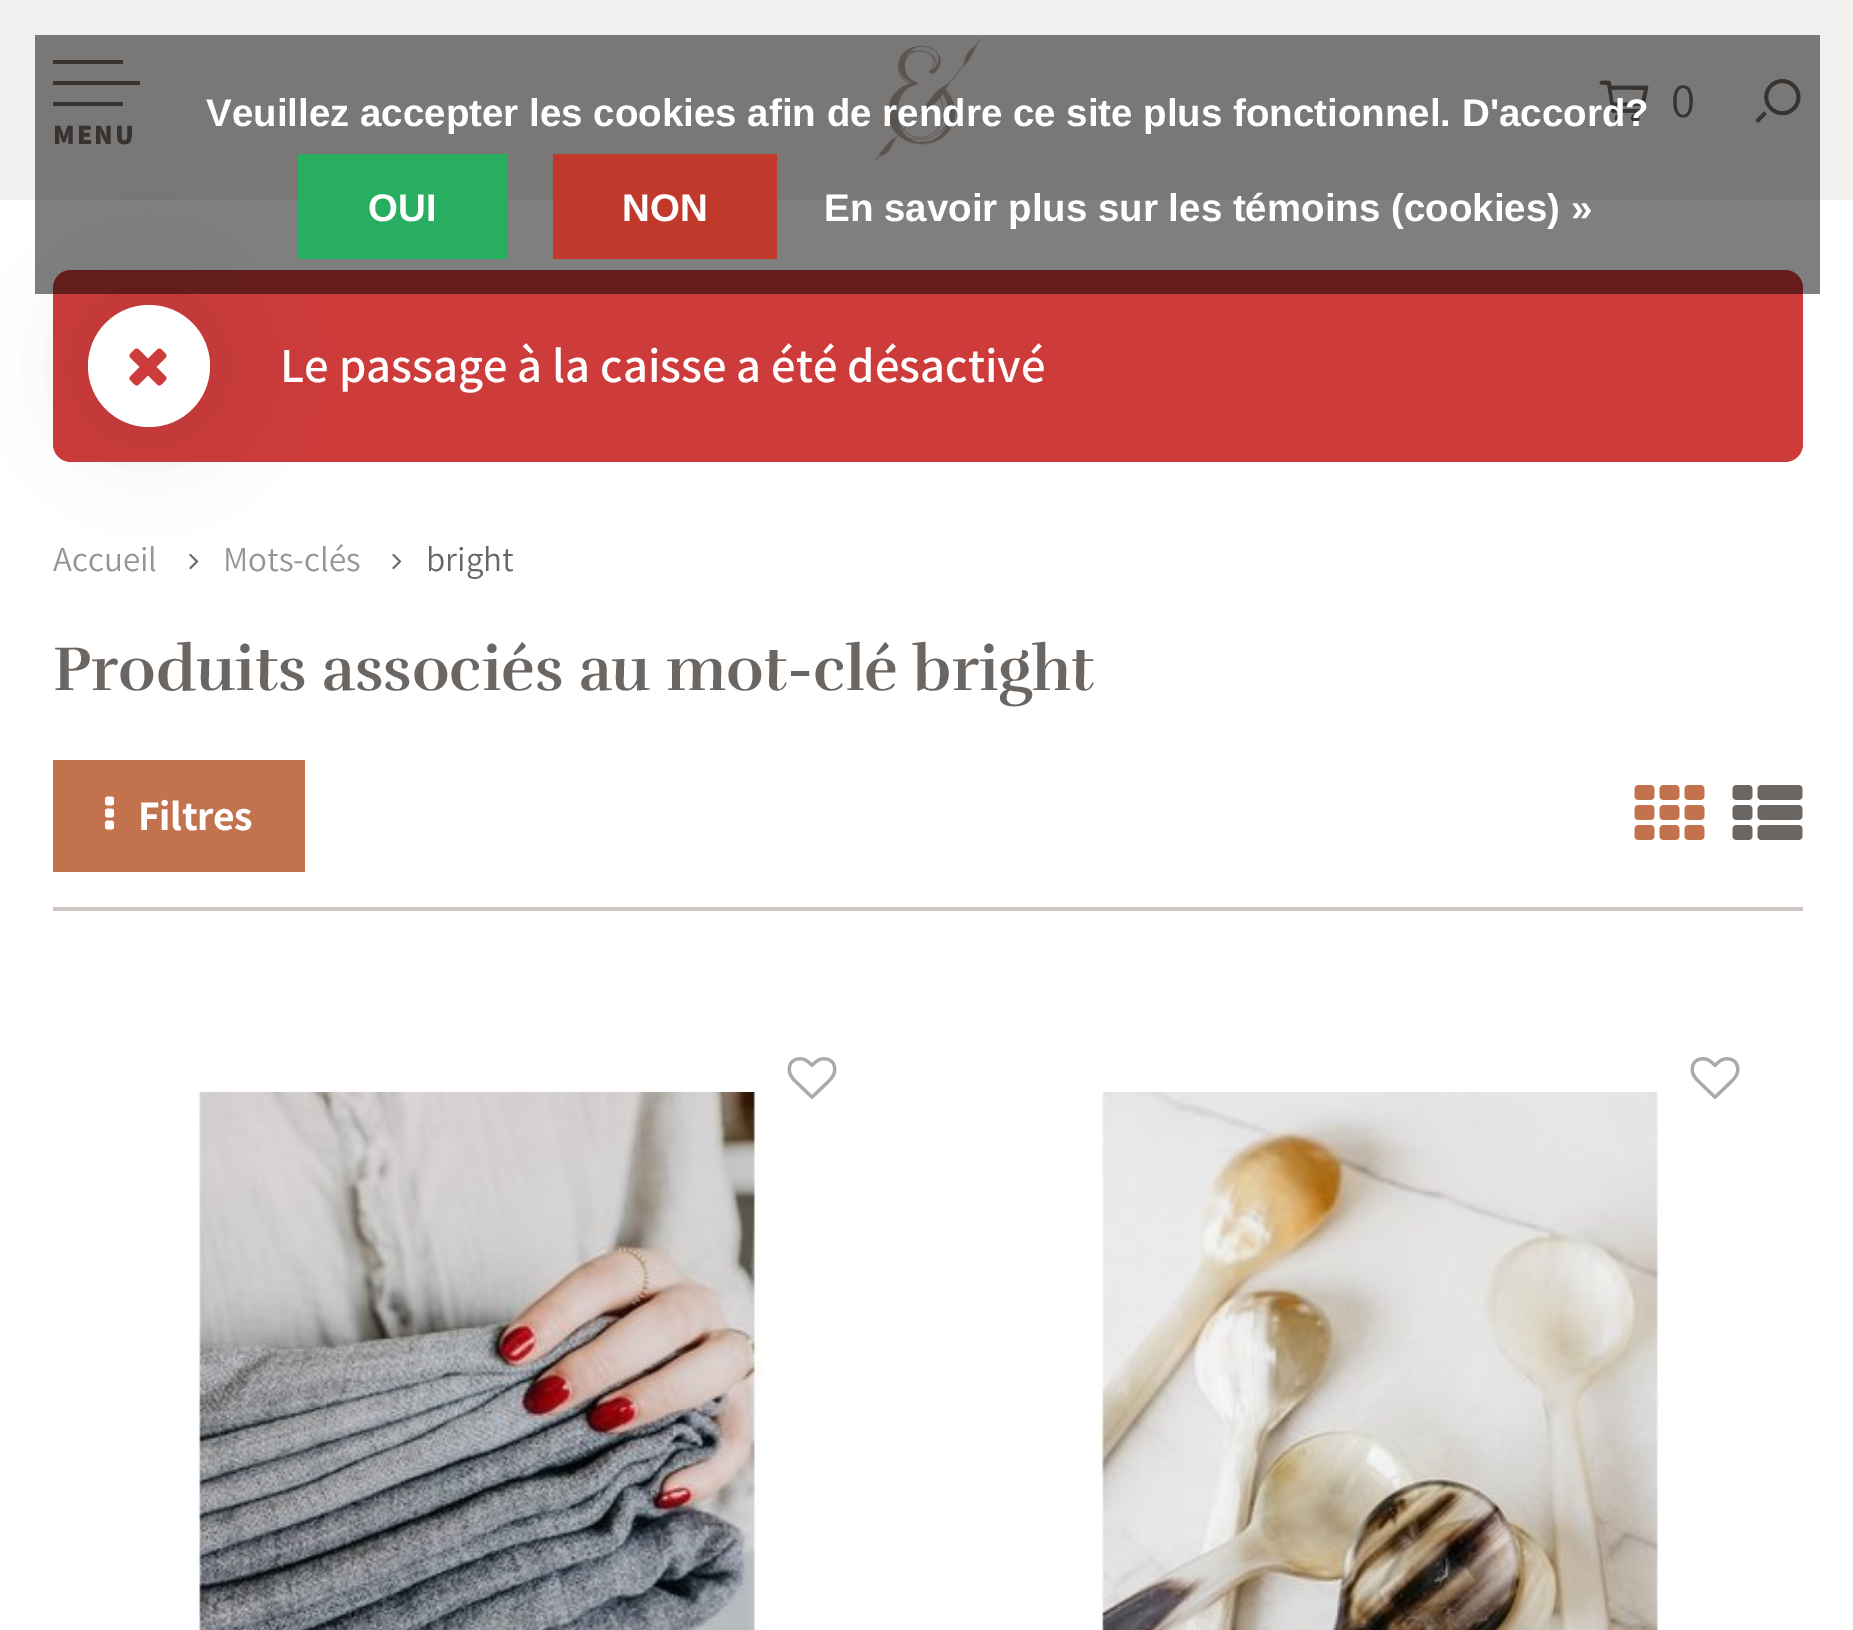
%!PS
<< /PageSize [1853 1630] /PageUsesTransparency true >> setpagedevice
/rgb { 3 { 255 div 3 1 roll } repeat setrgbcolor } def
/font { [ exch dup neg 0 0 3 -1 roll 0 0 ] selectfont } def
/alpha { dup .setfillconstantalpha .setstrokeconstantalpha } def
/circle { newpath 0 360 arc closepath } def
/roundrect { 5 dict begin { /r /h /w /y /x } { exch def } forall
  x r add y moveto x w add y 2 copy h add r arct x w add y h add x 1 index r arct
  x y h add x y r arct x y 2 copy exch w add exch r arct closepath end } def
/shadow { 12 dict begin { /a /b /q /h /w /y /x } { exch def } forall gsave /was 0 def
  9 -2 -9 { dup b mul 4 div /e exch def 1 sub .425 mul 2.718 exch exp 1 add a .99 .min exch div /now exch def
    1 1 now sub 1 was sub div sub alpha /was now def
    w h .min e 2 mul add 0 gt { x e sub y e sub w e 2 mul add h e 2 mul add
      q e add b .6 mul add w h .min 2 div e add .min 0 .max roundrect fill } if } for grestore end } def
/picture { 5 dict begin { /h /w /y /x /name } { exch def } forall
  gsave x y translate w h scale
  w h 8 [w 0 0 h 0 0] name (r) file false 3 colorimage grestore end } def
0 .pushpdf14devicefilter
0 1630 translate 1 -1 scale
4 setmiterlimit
255 255 255 rgb
0 0 1853 1630 rectfill
242 240 239 rgb
0 0 1853 200 rectfill
(img/1.rgb) 875 38 105 123 picture
(img/2.rgb) 1599 80 50 43 picture
(img/3.rgb) 1755 79 46 44 picture
[
  [53 60 70 4 108 102 99]
  [53 81 87 4 108 102 99]
  [53 102 70 4 108 102 99]
] { aload pop rgb rectfill } forall
205 59 59 rgb
53 270 1750 192 18 roundrect fill
(img/5.rgb) 189 553 10 17 picture
0 0 0 rgb
77 294 144 144 72 45.5 0.08 shadow
255 255 255 rgb
149 366 61 circle fill
(img/4.rgb) 129 348 38 38 picture
(img/5.rgb) 392 553 10 17 picture
207 198 195 rgb
53 907 1750 4 rectfill
194 114 77 rgb
53 760 252 112 rectfill
(img/6.rgb) 105 796 9 34 picture
(img/7.rgb) 1634 785 71 55 picture
(img/8.rgb) 1732 785 71 55 picture
(img/9.rgb) 787 1057 50 42 picture
(img/10.rgb) 197 1092 566 538 picture
(img/9.rgb) 1690 1057 50 42 picture
(img/11.rgb) 1099 1092 563 538 picture
/Assistant-Regular 49 font
108 102 99 rgb
1671 117 moveto (0) show
/Assistant-ExtraBold 28 font
53 144 moveto 2 0 (MENU) ashow
0.5 alpha
0 0 0 rgb
35 35 1785 259 rectfill
/LiberationSans-Bold 38.5 font
1 alpha
255 255 255 rgb
206 126 moveto (Veuillez accepter les cookies afin de rendre ce site plus fonctionnel. D'accord?) show
39 174 96 rgb
298 154 210 105 rectfill
255 255 255 rgb
368 221 moveto (OUI) show
192 57 43 rgb
553 154 224 105 rectfill
255 255 255 rgb
622 221 moveto (NON) show
824 221 moveto (En savoir plus sur les témoins \(cookies\) ») show
/Assistant-SemiBold 49 font
280 382 moveto (Le passage à la caisse a été désactivé) show
/Assistant-Regular 35 font
152 148 146 rgb
53 571 moveto (Accueil) show
223 571 moveto (Mots-clés) show
108 102 99 rgb
426 571 moveto (bright) show
/Rufina-Bold 63 font
53 690 moveto (Produits associés au mot-clé bright) show
/Assistant-Bold 42 font
255 255 255 rgb
138 830 moveto -0.5 0 (Filtres) ashow
.poppdf14devicefilter showpage
